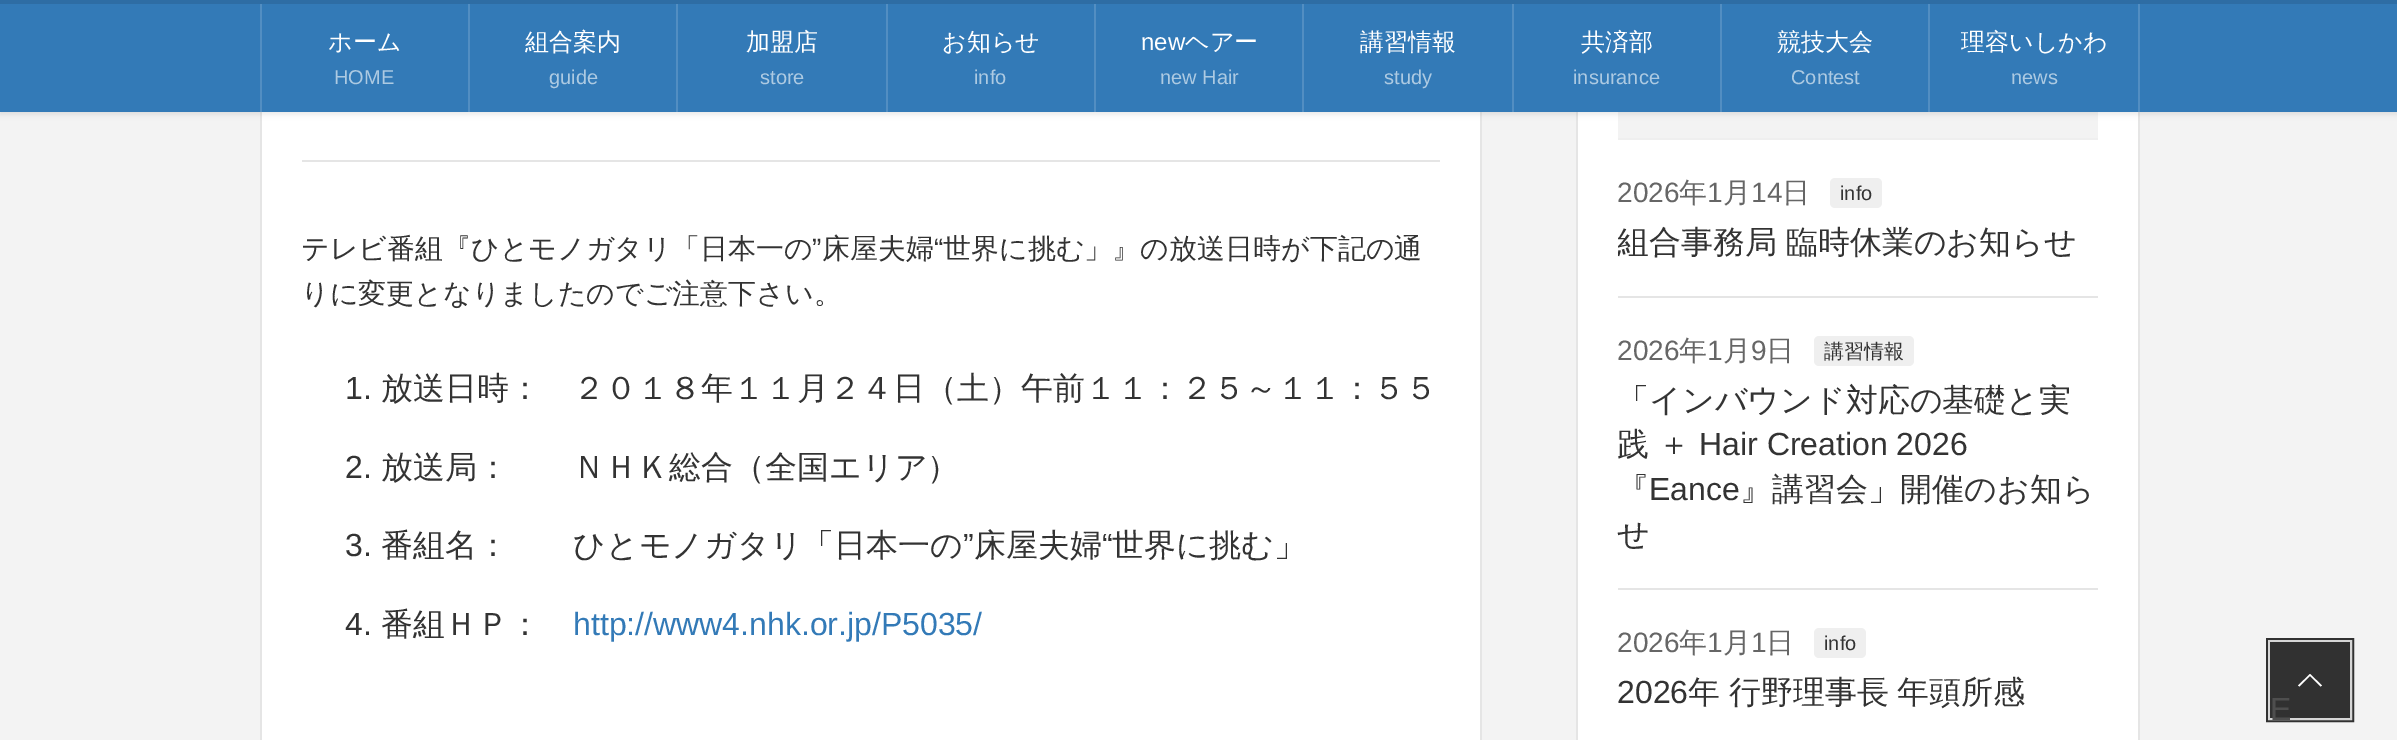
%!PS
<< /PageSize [2397 740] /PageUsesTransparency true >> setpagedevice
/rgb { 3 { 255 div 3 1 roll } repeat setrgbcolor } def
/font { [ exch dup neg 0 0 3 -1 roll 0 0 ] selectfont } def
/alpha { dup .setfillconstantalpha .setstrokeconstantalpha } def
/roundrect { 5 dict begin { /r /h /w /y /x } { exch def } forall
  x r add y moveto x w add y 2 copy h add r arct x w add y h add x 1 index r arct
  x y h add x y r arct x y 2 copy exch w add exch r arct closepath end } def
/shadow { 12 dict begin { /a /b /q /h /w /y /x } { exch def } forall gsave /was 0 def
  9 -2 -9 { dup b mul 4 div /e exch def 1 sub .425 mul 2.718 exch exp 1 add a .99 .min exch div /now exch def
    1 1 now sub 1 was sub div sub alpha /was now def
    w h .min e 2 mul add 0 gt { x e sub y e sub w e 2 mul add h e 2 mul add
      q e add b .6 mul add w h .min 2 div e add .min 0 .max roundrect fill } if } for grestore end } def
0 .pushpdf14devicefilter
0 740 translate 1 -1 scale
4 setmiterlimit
243 243 243 rgb
0 0 2397 740 rectfill
[
  [262 112 1218 628 255 255 255]
  [1480 112 2 628 229 229 229]
  [260 112 2 628 229 229 229]
  [1578 112 560 628 255 255 255]
  [2138 112 2 628 229 229 229]
  [1576 112 2 628 229 229 229]
  [1618 112 480 26 243 243 243]
] { aload pop rgb rectfill } forall
0 0 0 rgb
0 2 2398 112 0 3 0.1 shadow
[
  [0 4 2397 108 51 122 183]
  [0 0 2397 4 46 109 164]
  [260 4 2 108 82 142 194]
  [468 4 2 108 82 142 194]
  [676 4 2 108 82 142 194]
  [886 4 2 108 82 142 194]
  [1094 4 2 108 82 142 194]
  [1302 4 2 108 82 142 194]
  [1512 4 2 108 82 142 194]
  [1720 4 2 108 82 142 194]
  [2138 4 2 108 82 142 194]
  [1928 4 2 108 82 142 194]
  [302 160 1138 2 229 229 229]
  [1618 138 480 2 239 239 239]
  [1618 296 480 2 229 229 229]
] { aload pop rgb rectfill } forall
239 239 239 rgb
1830 178 52 30 5 roundrect fill
229 229 229 rgb
1618 588 480 2 rectfill
239 239 239 rgb
1814 336 100 30 5 roundrect fill
1814 628 52 30 5 roundrect fill
49 49 49 rgb
4 setlinewidth
2268 640 84 80 rectstroke
214 214 214 rgb
2 setlinewidth
2269 641 82 78 rectstroke
49 49 49 rgb
2270 642 80 76 rectfill
255 255 255 rgb
2322 685.5 moveto 2320.5 686.5 lineto 2310 676 lineto 2299.5 686.5 lineto 2298 685.5 lineto 2310 674 lineto closepath fill
/WenQuanYiZenHei-Medium 24 font
328 50 moveto (ホーム) show
/LiberationSans-Regular 20 font
173 202 226 rgb
334 84 moveto (HOME) show
/WenQuanYiZenHei-Medium 24 font
255 255 255 rgb
525 50 moveto (組合案内) show
/LiberationSans-Regular 20 font
173 202 226 rgb
549 84 moveto (guide) show
/WenQuanYiZenHei-Medium 24 font
255 255 255 rgb
746 50 moveto (加盟店) show
/LiberationSans-Regular 20 font
173 202 226 rgb
760 84 moveto (store) show
/WenQuanYiZenHei-Medium 24 font
255 255 255 rgb
942 50 moveto (お知らせ) show
/LiberationSans-Regular 20 font
173 202 226 rgb
974 84 moveto (info) show
/LiberationSans-Regular 24 font
255 255 255 rgb
1141 50 moveto (new) show
/WenQuanYiZenHei-Medium 24 font
1185 50 moveto (ヘアー) show
/LiberationSans-Regular 20 font
173 202 226 rgb
1160 84 moveto (new Hair) show
/WenQuanYiZenHei-Medium 24 font
255 255 255 rgb
1360 50 moveto (講習情報) show
/LiberationSans-Regular 20 font
173 202 226 rgb
1384 84 moveto (study) show
/WenQuanYiZenHei-Medium 24 font
255 255 255 rgb
1581 50 moveto (共済部) show
/LiberationSans-Regular 20 font
173 202 226 rgb
1573 84 moveto (insurance) show
/WenQuanYiZenHei-Medium 24 font
255 255 255 rgb
1777 50 moveto (競技大会) show
/LiberationSans-Regular 20 font
173 202 226 rgb
1791 84 moveto (Contest) show
/WenQuanYiZenHei-Medium 24 font
255 255 255 rgb
1961 50 moveto (理容いしかわ) show
/LiberationSans-Regular 20 font
173 202 226 rgb
2011 84 moveto (news) show
/WenQuanYiZenHei-Medium 28 font
51 51 51 rgb
301 258 moveto (テレビ番組『ひとモノガタリ「日本一の) show
/LiberationSans-Regular 28 font
812 258 moveto (”) show
/WenQuanYiZenHei-Medium 28 font
822 258 moveto (床屋夫婦) show
/LiberationSans-Regular 28 font
934 258 moveto (“) show
/WenQuanYiZenHei-Medium 28 font
943 258 moveto (世界に挑む」』の放送日時が下記の通) show
301 303 moveto (りに変更となりましたのでご注意下さい。) show
/LiberationSans-Regular 32 font
345 399 moveto (1.) show
/WenQuanYiZenHei-Medium 32 font
381 399 moveto (放送日時：　２０１８年１１月２４日（土）午前１１：２５～１１：５５) show
/LiberationSans-Regular 32 font
345 478 moveto (2.) show
/WenQuanYiZenHei-Medium 32 font
381 478 moveto (放送局：　　ＮＨＫ総合（全国エリア）) show
/LiberationSans-Regular 32 font
345 556 moveto (3.) show
/WenQuanYiZenHei-Medium 32 font
381 556 moveto (番組名：　　ひとモノガタリ「日本一の) show
/LiberationSans-Regular 32 font
963 556 moveto (”) show
/WenQuanYiZenHei-Medium 32 font
974 556 moveto (床屋夫婦) show
/LiberationSans-Regular 32 font
1102 556 moveto (“) show
/WenQuanYiZenHei-Medium 32 font
1112 556 moveto (世界に挑む」) show
/LiberationSans-Regular 32 font
345 635 moveto (4.) show
/WenQuanYiZenHei-Medium 32 font
381 635 moveto (番組ＨＰ：) show
/LiberationSans-Regular 32 font
51 122 183 rgb
573 635 moveto (http://www4.nhk.or.jp/P5035/) show
/LiberationSans-Regular 28 font
102 102 102 rgb
1617 202 moveto (2026) show
/WenQuanYiZenHei-Medium 28 font
1679 202 moveto (年) show
/LiberationSans-Regular 28 font
1707 202 moveto (1) show
/WenQuanYiZenHei-Medium 28 font
1723 202 moveto (月) show
/LiberationSans-Regular 28 font
1751 202 moveto (14) show
/WenQuanYiZenHei-Medium 28 font
1782 202 moveto (日) show
/LiberationSans-Regular 20 font
51 51 51 rgb
1840 200 moveto (info) show
gsave
1618 140 480 156 rectclip
/WenQuanYiZenHei-Medium 32 font
1617 253 moveto -1 0 32 (組合事務局 臨時休業のお知らせ) widthshow
grestore
/LiberationSans-Regular 28 font
102 102 102 rgb
1617 360 moveto (2026) show
/WenQuanYiZenHei-Medium 28 font
1679 360 moveto (年) show
/LiberationSans-Regular 28 font
1707 360 moveto (1) show
/WenQuanYiZenHei-Medium 28 font
1723 360 moveto (月) show
/LiberationSans-Regular 28 font
1751 360 moveto (9) show
/WenQuanYiZenHei-Medium 28 font
1766 360 moveto (日) show
/WenQuanYiZenHei-Medium 20 font
51 51 51 rgb
1824 358 moveto (講習情報) show
/WenQuanYiZenHei-Medium 32 font
[
  [(「インバウンド対応の基礎と実) 1617 411]
  [(践) 1617 455]
  [(＋) 1658 455]
] { aload pop moveto show } forall
/LiberationSans-Regular 32 font
1699 455 moveto (Hair Creation 2026) show
/WenQuanYiZenHei-Medium 32 font
1617 500 moveto (『) show
/LiberationSans-Regular 32 font
1649 500 moveto (Eance) show
/WenQuanYiZenHei-Medium 32 font
1740 500 moveto (』講習会」開催のお知ら) show
1617 545 moveto (せ) show
/LiberationSans-Regular 28 font
102 102 102 rgb
1617 652 moveto (2026) show
/WenQuanYiZenHei-Medium 28 font
1679 652 moveto (年) show
/LiberationSans-Regular 28 font
1707 652 moveto (1) show
/WenQuanYiZenHei-Medium 28 font
1723 652 moveto (月) show
/LiberationSans-Regular 28 font
1751 652 moveto (1) show
/WenQuanYiZenHei-Medium 28 font
1766 652 moveto (日) show
/LiberationSans-Regular 20 font
51 51 51 rgb
1824 650 moveto (info) show
/LiberationSans-Regular 32 font
1617 703 moveto (2026) show
/WenQuanYiZenHei-Medium 32 font
1688 703 moveto -1 0 32 (年 行野理事長 年頭所感) widthshow
/LiberationSans-Regular 32 font
78 78 78 rgb
2270 720 moveto (E) show
.poppdf14devicefilter showpage
